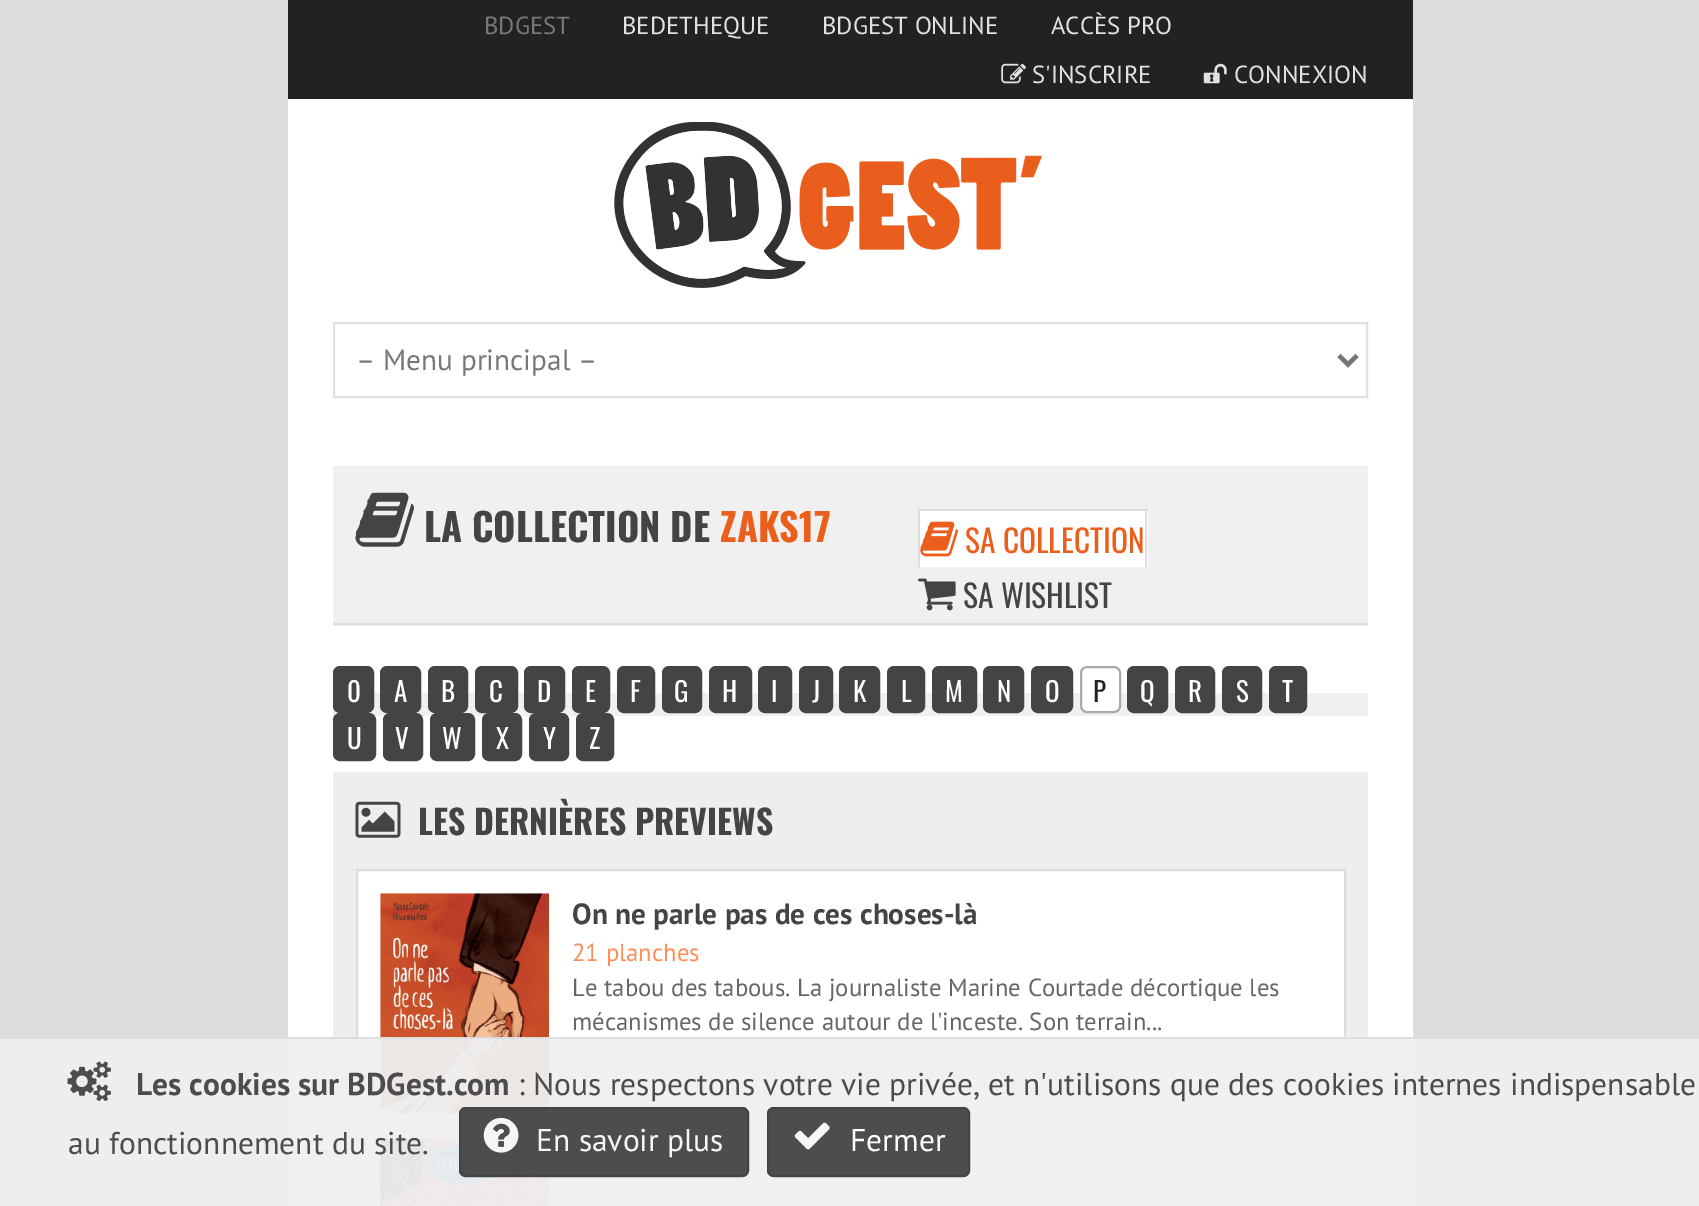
%!PS
<< /PageSize [1699 1206] /PageUsesTransparency true >> setpagedevice
/rgb { 3 { 255 div 3 1 roll } repeat setrgbcolor } def
/font { [ exch dup neg 0 0 3 -1 roll 0 0 ] selectfont } def
/alpha { dup .setfillconstantalpha .setstrokeconstantalpha } def
/roundrect { 5 dict begin { /r /h /w /y /x } { exch def } forall
  x r add y moveto x w add y 2 copy h add r arct x w add y h add x 1 index r arct
  x y h add x y r arct x y 2 copy exch w add exch r arct closepath end } def
/picture { 5 dict begin { /h /w /y /x /name } { exch def } forall
  gsave x y translate w h scale
  w h 8 [w 0 0 h 0 0] name (r) file false 3 colorimage grestore end } def
0 .pushpdf14devicefilter
0 1206 translate 1 -1 scale
4 setmiterlimit
221 221 221 rgb
0 0 1699 1206 rectfill
255 255 255 rgb
288 99 1125 1107 rectfill
34 34 34 rgb
288 0 1125 99 rectfill
(img/1.rgb) 1001 63 25 21 picture
(img/2.rgb) 1203 63 24 21 picture
(img/3.rgb) 614 122 428 166 picture
225 225 225 rgb
2 setlinewidth
334 323 1033 74 rectstroke
119 119 119 rgb
4.5 setlinewidth
1339 355.5 moveto 1348 364.5 lineto 1357 355.5 lineto stroke
240 240 240 rgb
333 466 1035 160 rectfill
221 221 221 rgb
333 623 1035 2 rectfill
(img/4.rgb) 355 492 59 55 picture
[
  [920 511 228 56 255 255 255]
  [918 509 230 2 221 221 221]
  [1145 509 2 58 221 221 221]
  [918 509 2 58 221 221 221]
] { aload pop rgb rectfill } forall
(img/5.rgb) 920 521 38 36 picture
(img/6.rgb) 918 578 38 33 picture
240 240 240 rgb
333 693 1035 23 rectfill
68 68 68 rgb
334 667 39 45 6 roundrect gsave fill grestore
2 setlinewidth
stroke
381 667 39 45 6 roundrect gsave fill grestore
stroke
429 667 38 45 6 roundrect gsave fill grestore
stroke
476 667 41 45 6 roundrect gsave fill grestore
stroke
525 667 39 45 6 roundrect gsave fill grestore
stroke
573 667 36 45 6 roundrect gsave fill grestore
stroke
618 667 36 45 6 roundrect gsave fill grestore
stroke
663 667 38 45 6 roundrect gsave fill grestore
stroke
710 667 41 45 6 roundrect gsave fill grestore
stroke
759 667 32 45 6 roundrect gsave fill grestore
stroke
800 667 32 45 6 roundrect gsave fill grestore
stroke
840 667 39 45 6 roundrect gsave fill grestore
stroke
888 667 36 45 6 roundrect gsave fill grestore
stroke
933 667 43 45 6 roundrect gsave fill grestore
stroke
984 667 39 45 6 roundrect gsave fill grestore
stroke
1032 667 40 45 6 roundrect gsave fill grestore
stroke
255 255 255 rgb
1081 667 39 45 6 roundrect gsave fill grestore
170 170 170 rgb
stroke
68 68 68 rgb
1128 667 39 45 6 roundrect gsave fill grestore
stroke
1176 667 38 45 6 roundrect gsave fill grestore
stroke
1223 667 38 45 6 roundrect gsave fill grestore
stroke
1270 667 36 45 6 roundrect gsave fill grestore
stroke
334 714 41 46 6 roundrect gsave fill grestore
stroke
384 714 38 46 6 roundrect gsave fill grestore
stroke
431 714 43 46 6 roundrect gsave fill grestore
stroke
483 714 38 46 6 roundrect gsave fill grestore
stroke
530 714 38 46 6 roundrect gsave fill grestore
stroke
577 714 36 46 6 roundrect gsave fill grestore
stroke
238 238 238 rgb
333 772 1035 434 rectfill
251 251 251 rgb
333 771 1035 1 rectfill
(img/7.rgb) 355 801 46 37 picture
255 255 255 rgb
357 870 moveto 1345 870 lineto 1345 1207 lineto 357 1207 lineto closepath gsave fill grestore
221 221 221 rgb
stroke
228 228 228 rgb
2.2 setlinewidth
[6.75 4.5] 0 setdash
380 1126 moveto 1321 1126 lineto stroke
(img/8.rgb) 380 893 169 221 picture
(img/9.rgb) 380 1138 169 68 picture
0.95 alpha
239 239 239 rgb
0 1037 1699 169 rectfill
221 221 221 rgb
0 1037 1699 2 rectfill
1 alpha
(img/10.rgb) 67 1061 44 41 picture
0.95 alpha
68 68 68 rgb
459 1107 290 70 7 roundrect fill
2 setlinewidth
[] 0 setdash
460 1108 288 68 6 roundrect stroke
1 alpha
(img/11.rgb) 483 1117 36 36 picture
77 77 77 rgb
767 1107 203 70 7 roundrect fill
0.95 alpha
68 68 68 rgb
768 1108 201 68 6 roundrect stroke
1 alpha
(img/12.rgb) 794 1122 36 28 picture
/PTSans-Regular 24.75 font
119 119 119 rgb
484 34 moveto (BDGEST) show
225 225 225 rgb
[
  [(BEDETHEQUE) 622 34]
  [(BDGEST ONLINE) 822 34]
  [(ACCÈS PRO) 1051 34]
  [(S'INSCRIRE) 1032 83]
  [(CONNEXION) 1234 83]
] { aload pop moveto show } forall
/PTSans-Regular 29.25 font
119 119 119 rgb
356 370 moveto (– Menu principal –) show
/Oswald-Bold 38.25 font
68 68 68 rgb
424 542 moveto (LA COLLECTION DE) show
235 94 28 rgb
720 542 moveto (ZAKS17) show
/Oswald-Regular 31.5 font
965 553 moveto (SA COLLECTION) show
68 68 68 rgb
963 608 moveto (SA WISHLIST) show
/Oswald-Regular 27 font
255 255 255 rgb
[
  [(0) 347 702]
  [(A) 394 702]
  [(B) 441 702]
  [(C) 489 702]
  [(D) 537 702]
  [(E) 585 702]
  [(F) 630 702]
  [(G) 674 702]
  [(H) 722 702]
  [(I) 771 702]
  [(J) 812 702]
  [(K) 853 702]
  [(L) 901 702]
  [(M) 945 702]
  [(N) 997 702]
  [(O) 1045 702]
] { aload pop moveto show } forall
34 34 34 rgb
1093 702 moveto (P) show
255 255 255 rgb
[
  [(Q) 1140 702]
  [(R) 1188 702]
  [(S) 1236 702]
  [(T) 1282 702]
  [(U) 347 749]
  [(V) 395 749]
  [(W) 442 749]
  [(X) 496 749]
  [(Y) 543 749]
  [(Z) 589 749]
] { aload pop moveto show } forall
/Oswald-Bold 33.75 font
68 68 68 rgb
418 835 moveto (LES DERNIÈRES PREVIEWS) show
/PTSans-Bold 29.25 font
572 924 moveto (On ne parle pas de ces choses-là) show
/PTSans-Regular 24.75 font
255 141 88 rgb
572 961 moveto (21 planches) show
102 102 102 rgb
572 996 moveto (Le tabou des tabous. La journaliste Marine Courtade décortique les) show
572 1030 moveto (mécanismes de silence autour de l'inceste. Son terrain...) show
/PTSans-Bold 31.5 font
77 76 76 rgb
136 1095 moveto (Les cookies sur BDGest.com) show
/PTSans-Regular 31.5 font
[
  [(:) 518 1095]
  [(Nous respectons votre vie privée, et n'utilisons que des cookies internes indispensable) 533 1095]
  [(au fonctionnement du site.) 68 1154]
] { aload pop moveto show } forall
246 246 246 rgb
536 1151 moveto (En savoir plus) show
255 255 255 rgb
850 1151 moveto (Fermer) show
.poppdf14devicefilter showpage
